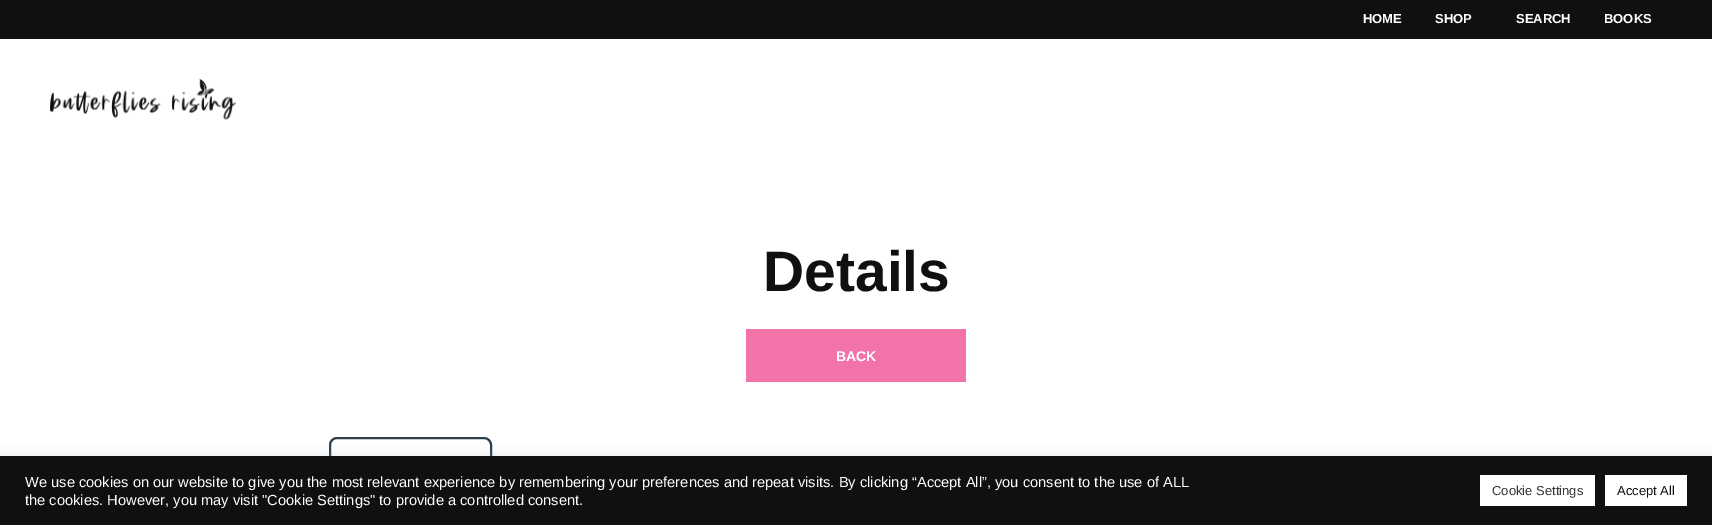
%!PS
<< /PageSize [1712 525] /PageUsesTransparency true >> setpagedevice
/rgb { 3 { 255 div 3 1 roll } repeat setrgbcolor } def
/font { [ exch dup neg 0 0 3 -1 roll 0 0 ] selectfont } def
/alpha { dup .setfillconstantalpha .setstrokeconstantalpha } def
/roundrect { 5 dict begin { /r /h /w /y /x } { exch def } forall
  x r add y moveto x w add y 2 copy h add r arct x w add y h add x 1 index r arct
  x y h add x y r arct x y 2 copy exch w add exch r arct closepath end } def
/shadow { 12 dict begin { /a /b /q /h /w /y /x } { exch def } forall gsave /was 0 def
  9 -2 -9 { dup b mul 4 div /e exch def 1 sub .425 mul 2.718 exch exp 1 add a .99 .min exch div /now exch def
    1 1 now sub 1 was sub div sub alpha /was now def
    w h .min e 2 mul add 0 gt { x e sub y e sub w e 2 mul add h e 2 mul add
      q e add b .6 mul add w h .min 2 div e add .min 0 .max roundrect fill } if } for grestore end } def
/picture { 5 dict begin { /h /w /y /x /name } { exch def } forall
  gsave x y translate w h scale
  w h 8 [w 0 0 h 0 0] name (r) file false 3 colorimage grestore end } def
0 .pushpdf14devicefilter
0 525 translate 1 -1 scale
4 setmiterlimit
255 255 255 rgb
0 0 1712 525 rectfill
17 16 17 rgb
0 0 1712 39 rectfill
(img/1.rgb) 50 79 186 41 picture
241 115 169 rgb
746 329 220 53 rectfill
44 63 76 rgb
2 setlinewidth
330 438 161 42 7 roundrect stroke
172 171 171 rgb
0 455 1712 69 0 5 0.3 shadow
[
  [0 456 1712 69 17 16 17]
  [1480 475 115 31 255 255 255]
  [1605 475 82 31 255 255 255]
] { aload pop rgb rectfill } forall
/LiberationSans-Bold 13 font
[
  [(HOME) 1363 23]
  [(SHOP) 1435 23]
  [(SEARCH) 1516 23]
  [(BOOKS) 1604 23]
] { aload pop moveto show } forall
/LiberationSans-Bold 57 font
17 16 17 rgb
763 291 moveto (Details) show
/LiberationSans-Bold 14 font
255 255 255 rgb
836 361 moveto (BACK) show
/LiberationSans-Regular 14.67 font
25 487 moveto (We use cookies on our website to give you the most relevant experience by remembering your preferences and repeat visits. By clicking “Accept All”, you consent to the use of ALL) show
25 505 moveto (the cookies. However, you may visit "Cookie Settings" to provide a controlled consent.) show
/LiberationSans-Regular 13 font
51 51 51 rgb
1492 495 moveto (Cookie Settings) show
17 16 17 rgb
1617 495 moveto (Accept All) show
.poppdf14devicefilter showpage
